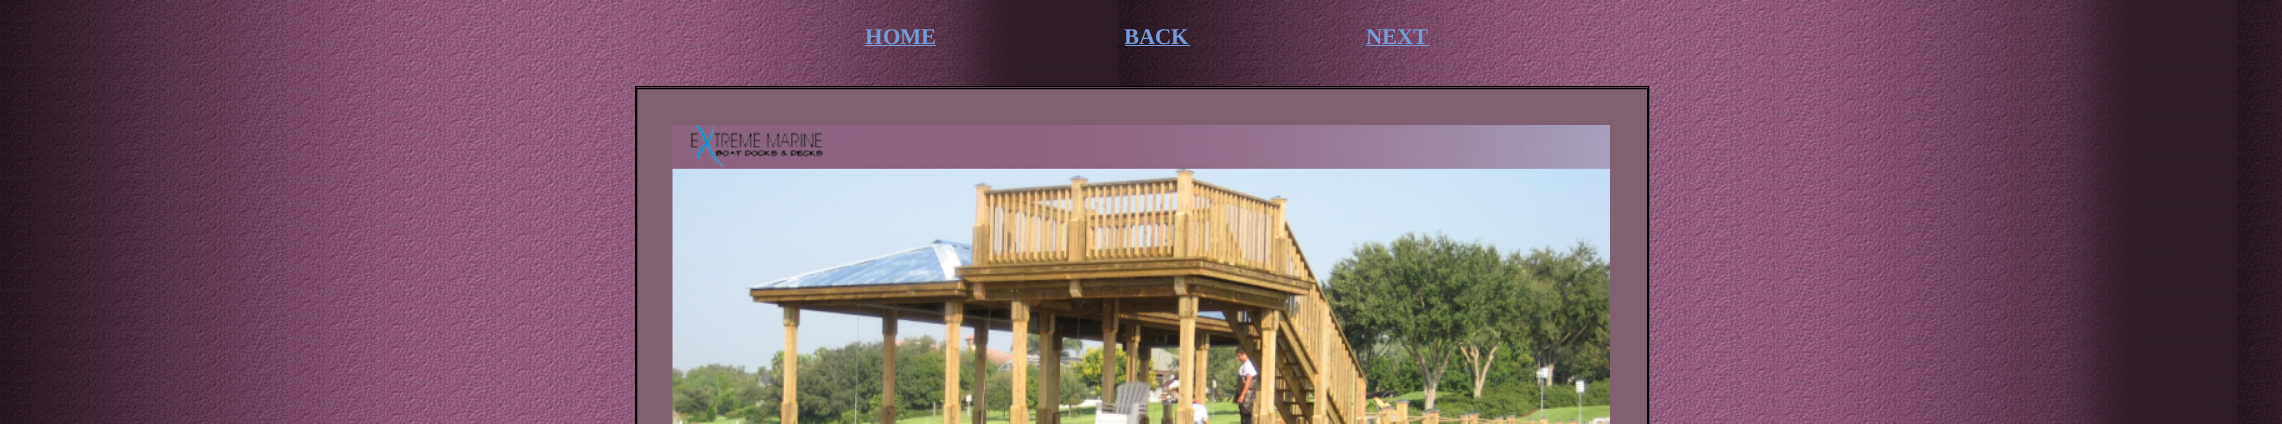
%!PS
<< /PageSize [2282 424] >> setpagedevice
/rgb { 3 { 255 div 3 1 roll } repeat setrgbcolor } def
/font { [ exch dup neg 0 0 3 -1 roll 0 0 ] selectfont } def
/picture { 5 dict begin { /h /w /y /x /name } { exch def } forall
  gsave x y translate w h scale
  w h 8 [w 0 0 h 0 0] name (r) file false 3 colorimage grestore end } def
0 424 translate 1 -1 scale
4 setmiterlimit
255 255 255 rgb
0 0 2282 424 rectfill
(img/1.rgb) 0 0 2282 424 picture
[
  [865 45 71 1 119 155 217]
  [1125 45 65 1 119 155 217]
  [1366 45 63 1 119 155 217]
] { aload pop rgb rectfill } forall
128 97 113 rgb
635.5 86.5 moveto 1648.5 86.5 lineto 1648.5 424.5 lineto 635.5 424.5 lineto closepath gsave fill grestore
0 0 0 rgb
stroke
636.5 88.5 1011 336 rectstroke
(img/2.rgb) 672 125 938 299 picture
/LiberationSerif-Bold 22.5 font
119 155 217 rgb
[
  [(HOME) 865 44]
  [(BACK) 1124 44]
  [(NEXT) 1366 44]
] { aload pop moveto show } forall
showpage
